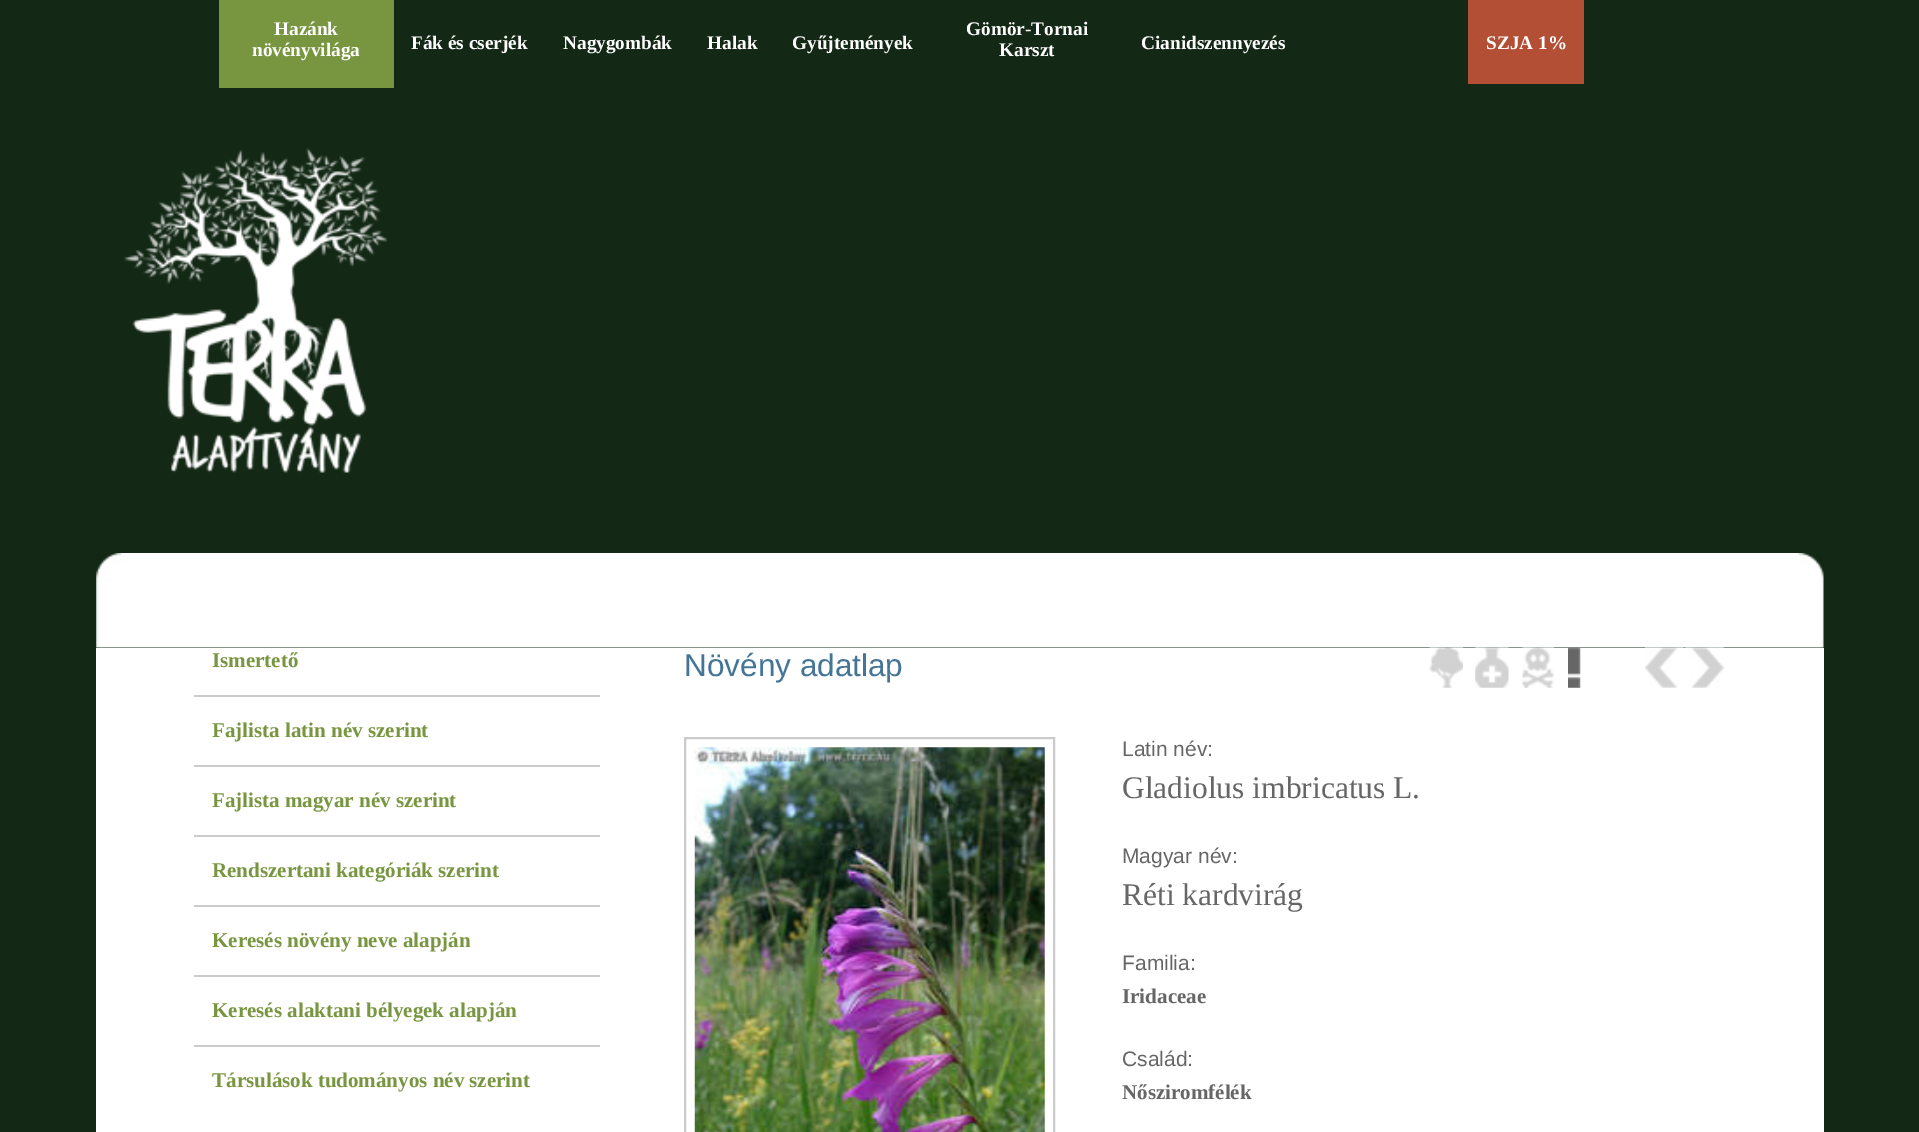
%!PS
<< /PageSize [1919 1132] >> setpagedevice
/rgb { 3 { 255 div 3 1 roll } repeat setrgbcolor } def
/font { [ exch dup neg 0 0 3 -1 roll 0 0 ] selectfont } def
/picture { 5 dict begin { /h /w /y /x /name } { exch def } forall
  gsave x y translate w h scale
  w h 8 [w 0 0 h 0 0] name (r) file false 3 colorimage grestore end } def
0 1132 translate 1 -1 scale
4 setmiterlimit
19 40 21 rgb
0 0 1919 1132 rectfill
120 150 64 rgb
219 0 175 88 rectfill
179 79 53 rgb
1468 0 116 84 rectfill
(img/1.rgb) 124 148 264 325 picture
(img/2.rgb) 96 553 1728 95 picture
[
  [96 648 1728 484 255 255 255]
  [194 695 406 2 203 203 203]
  [194 765 406 2 203 203 203]
  [194 835 406 2 203 203 203]
  [194 905 406 2 203 203 203]
  [194 975 406 2 203 203 203]
  [194 1045 406 2 203 203 203]
] { aload pop rgb rectfill } forall
(img/3.rgb) 1429 647 34 41 picture
(img/4.rgb) 1475 647 34 41 picture
(img/5.rgb) 1522 647 32 41 picture
(img/6.rgb) 1568 647 13 41 picture
(img/7.rgb) 1645 647 39 41 picture
(img/8.rgb) 1685 647 39 41 picture
2 setlinewidth
685 738 369 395 rectstroke
(img/9.rgb) 694 747 351 385 picture
/LiberationSerif-Bold 19.25 font
255 255 255 rgb
[
  [(Hazánk) 274 35]
  [(növényvilága) 252 56]
  [(Fák és cserjék) 411 49]
  [(Nagygombák) 563 49]
  [(Halak) 707 49]
  [(Gyűjtemények) 792 49]
  [(Gömör-Tornai) 966 35]
  [(Karszt) 999 56]
  [(Cianidszennyezés) 1141 49]
  [(SZJA 1%) 1486 49]
] { aload pop moveto show } forall
/LiberationSerif-Bold 21 font
120 150 64 rgb
[
  [(Ismertető) 212 667]
  [(Fajlista latin név szerint) 212 737]
  [(Fajlista magyar név szerint) 212 807]
  [(Rendszertani kategóriák szerint) 212 877]
  [(Keresés növény neve alapján) 212 947]
  [(Keresés alaktani bélyegek alapján) 212 1017]
  [(Társulások tudományos név szerint) 212 1087]
] { aload pop moveto show } forall
/LiberationSans-Regular 31.5 font
68 117 151 rgb
684 676 moveto (Növény adatlap) show
/LiberationSans-Regular 21 font
102 102 102 rgb
1122 756 moveto (Latin név:) show
/LiberationSerif-Regular 31.5 font
1122 798 moveto (Gladiolus imbricatus L.) show
/LiberationSans-Regular 21 font
1122 863 moveto (Magyar név:) show
/LiberationSerif-Regular 31.5 font
1122 905 moveto (Réti kardvirág) show
/LiberationSans-Regular 21 font
1122 970 moveto (Familia:) show
/LiberationSerif-Bold 21 font
1122 1003 moveto (Iridaceae) show
/LiberationSans-Regular 21 font
1122 1066 moveto (Család:) show
/LiberationSerif-Bold 21 font
1122 1099 moveto (Nősziromfélék) show
showpage
